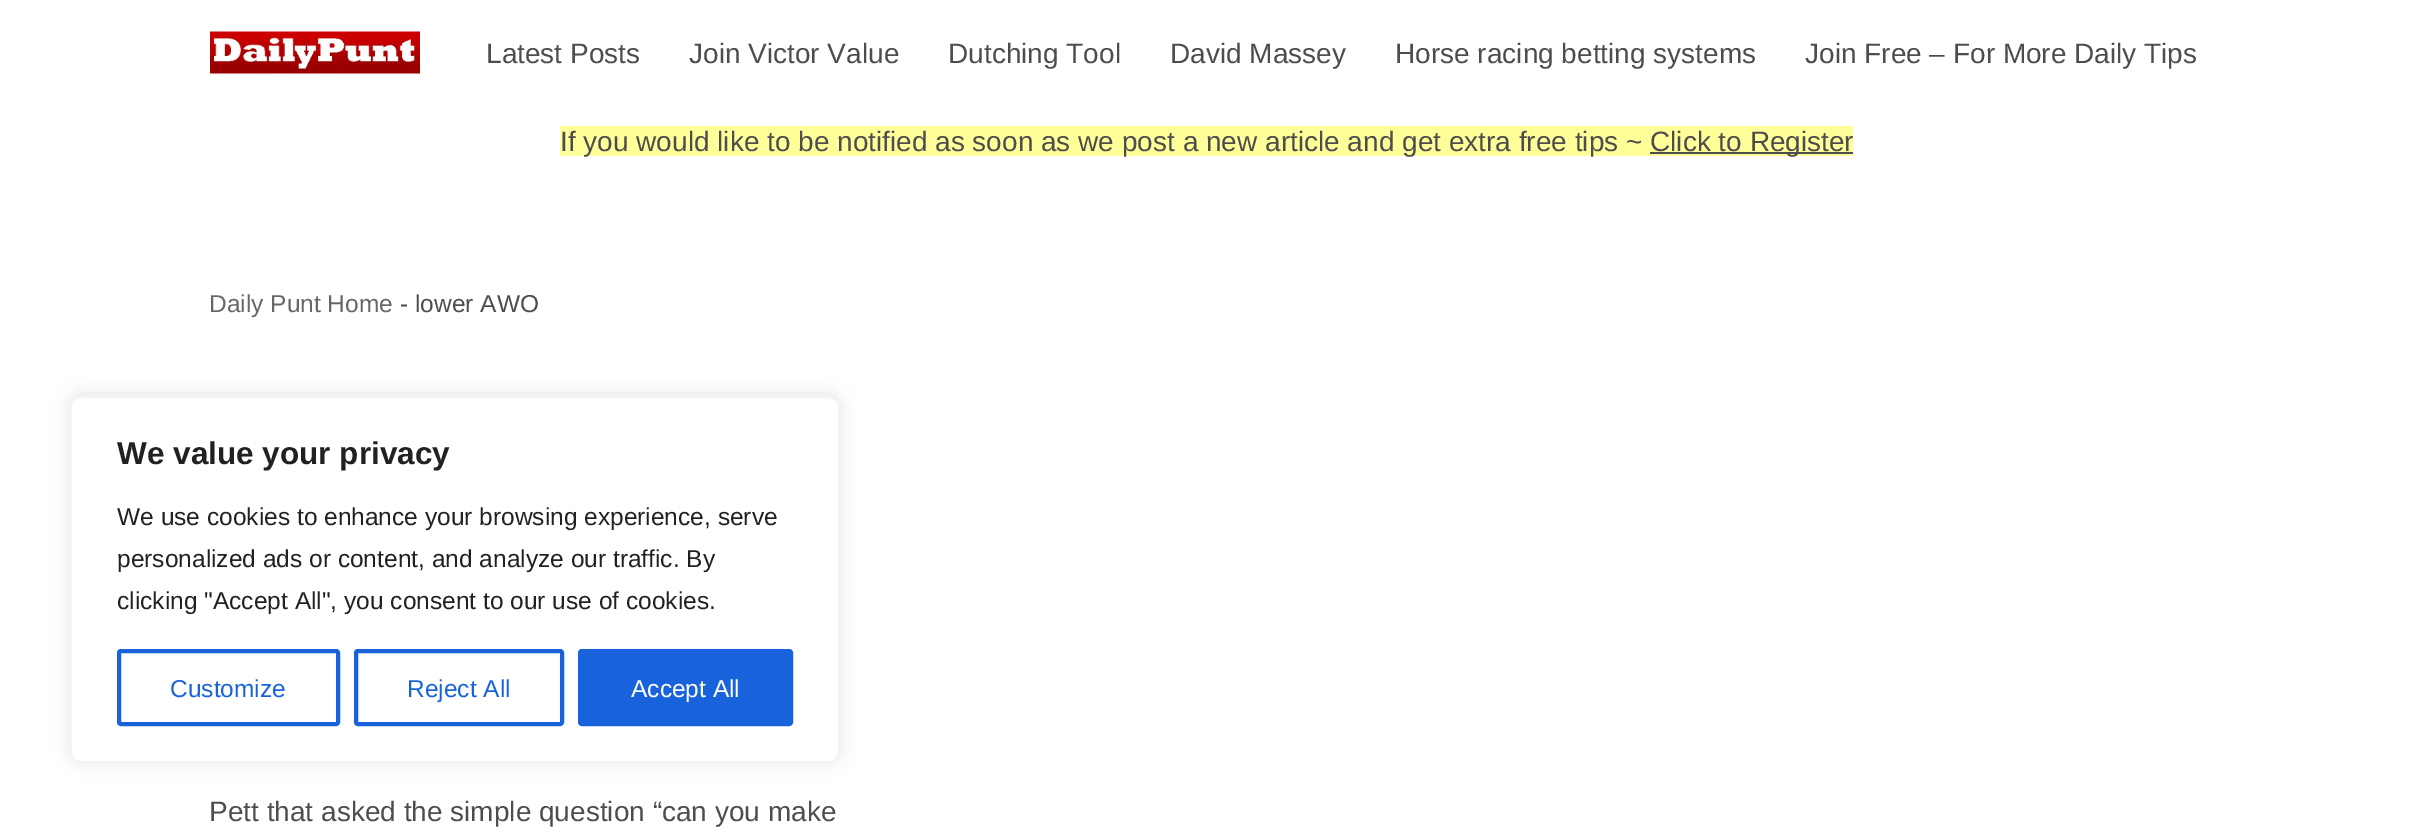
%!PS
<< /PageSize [2412 832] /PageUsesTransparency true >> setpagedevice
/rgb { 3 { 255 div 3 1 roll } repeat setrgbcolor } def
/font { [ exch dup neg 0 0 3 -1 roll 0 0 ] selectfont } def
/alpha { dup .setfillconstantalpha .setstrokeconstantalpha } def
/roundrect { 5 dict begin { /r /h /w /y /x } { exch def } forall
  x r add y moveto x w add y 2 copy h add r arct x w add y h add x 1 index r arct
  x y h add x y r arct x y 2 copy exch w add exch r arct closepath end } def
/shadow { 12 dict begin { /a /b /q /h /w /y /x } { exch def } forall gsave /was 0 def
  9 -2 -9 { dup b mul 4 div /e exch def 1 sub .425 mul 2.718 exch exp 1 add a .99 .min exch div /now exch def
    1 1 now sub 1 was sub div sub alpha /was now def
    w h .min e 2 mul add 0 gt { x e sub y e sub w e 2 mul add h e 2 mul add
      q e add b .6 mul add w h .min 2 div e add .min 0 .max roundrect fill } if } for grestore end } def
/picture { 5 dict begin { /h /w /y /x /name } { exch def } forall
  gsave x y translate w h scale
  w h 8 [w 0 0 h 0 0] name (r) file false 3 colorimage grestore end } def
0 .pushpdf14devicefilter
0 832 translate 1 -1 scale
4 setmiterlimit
255 255 255 rgb
0 0 2412 832 rectfill
(img/1.rgb) 210 31 210 43 picture
255 255 153 rgb
560 126 1293 30 rectfill
78 77 77 rgb
1650 152 203 2 rectfill
172 171 171 rgb
70 394 770 367 11 9 0.3 shadow
255 255 255 rgb
71 397 768 365 10 roundrect gsave fill grestore
244 244 244 rgb
2 setlinewidth
stroke
24 99 220 rgb
4 setlinewidth
119 651 219 73 2 roundrect stroke
356 651 206 73 2 roundrect stroke
580 651 211 73 2 roundrect gsave fill grestore
stroke
/LiberationSans-Regular 28 font
78 77 77 rgb
[
  [(Latest Posts) 486 63]
  [(Join Victor Value) 689 63]
  [(Dutching Tool) 948 63]
  [(David Massey) 1170 63]
  [(Horse racing betting systems) 1395 63]
  [(Join Free – For More Daily Tips) 1805 63]
  [(If you would like to be notified as soon as we post a new article and get extra free tips ~) 560 151]
  [(Click to Register) 1650 151]
] { aload pop moveto show } forall
/LiberationSans-Regular 24.5 font
103 103 103 rgb
209 312 moveto (Daily Punt Home) show
78 77 77 rgb
400 312 moveto (- lower AWO) show
/LiberationSans-Regular 28 font
209 821 moveto (Pett that asked the simple question “can you make) show
/LiberationSans-Bold 31.5 font
33 33 33 rgb
117 464 moveto (We value your privacy) show
/LiberationSans-Regular 24.5 font
[
  [(We use cookies to enhance your browsing experience, serve) 117 525]
  [(personalized ads or content, and analyze our traffic. By) 117 567]
  [(clicking "Accept All", you consent to our use of cookies.) 117 609]
] { aload pop moveto show } forall
24 99 220 rgb
170 697 moveto (Customize) show
407 697 moveto (Reject All) show
255 255 255 rgb
631 697 moveto (Accept All) show
.poppdf14devicefilter showpage
